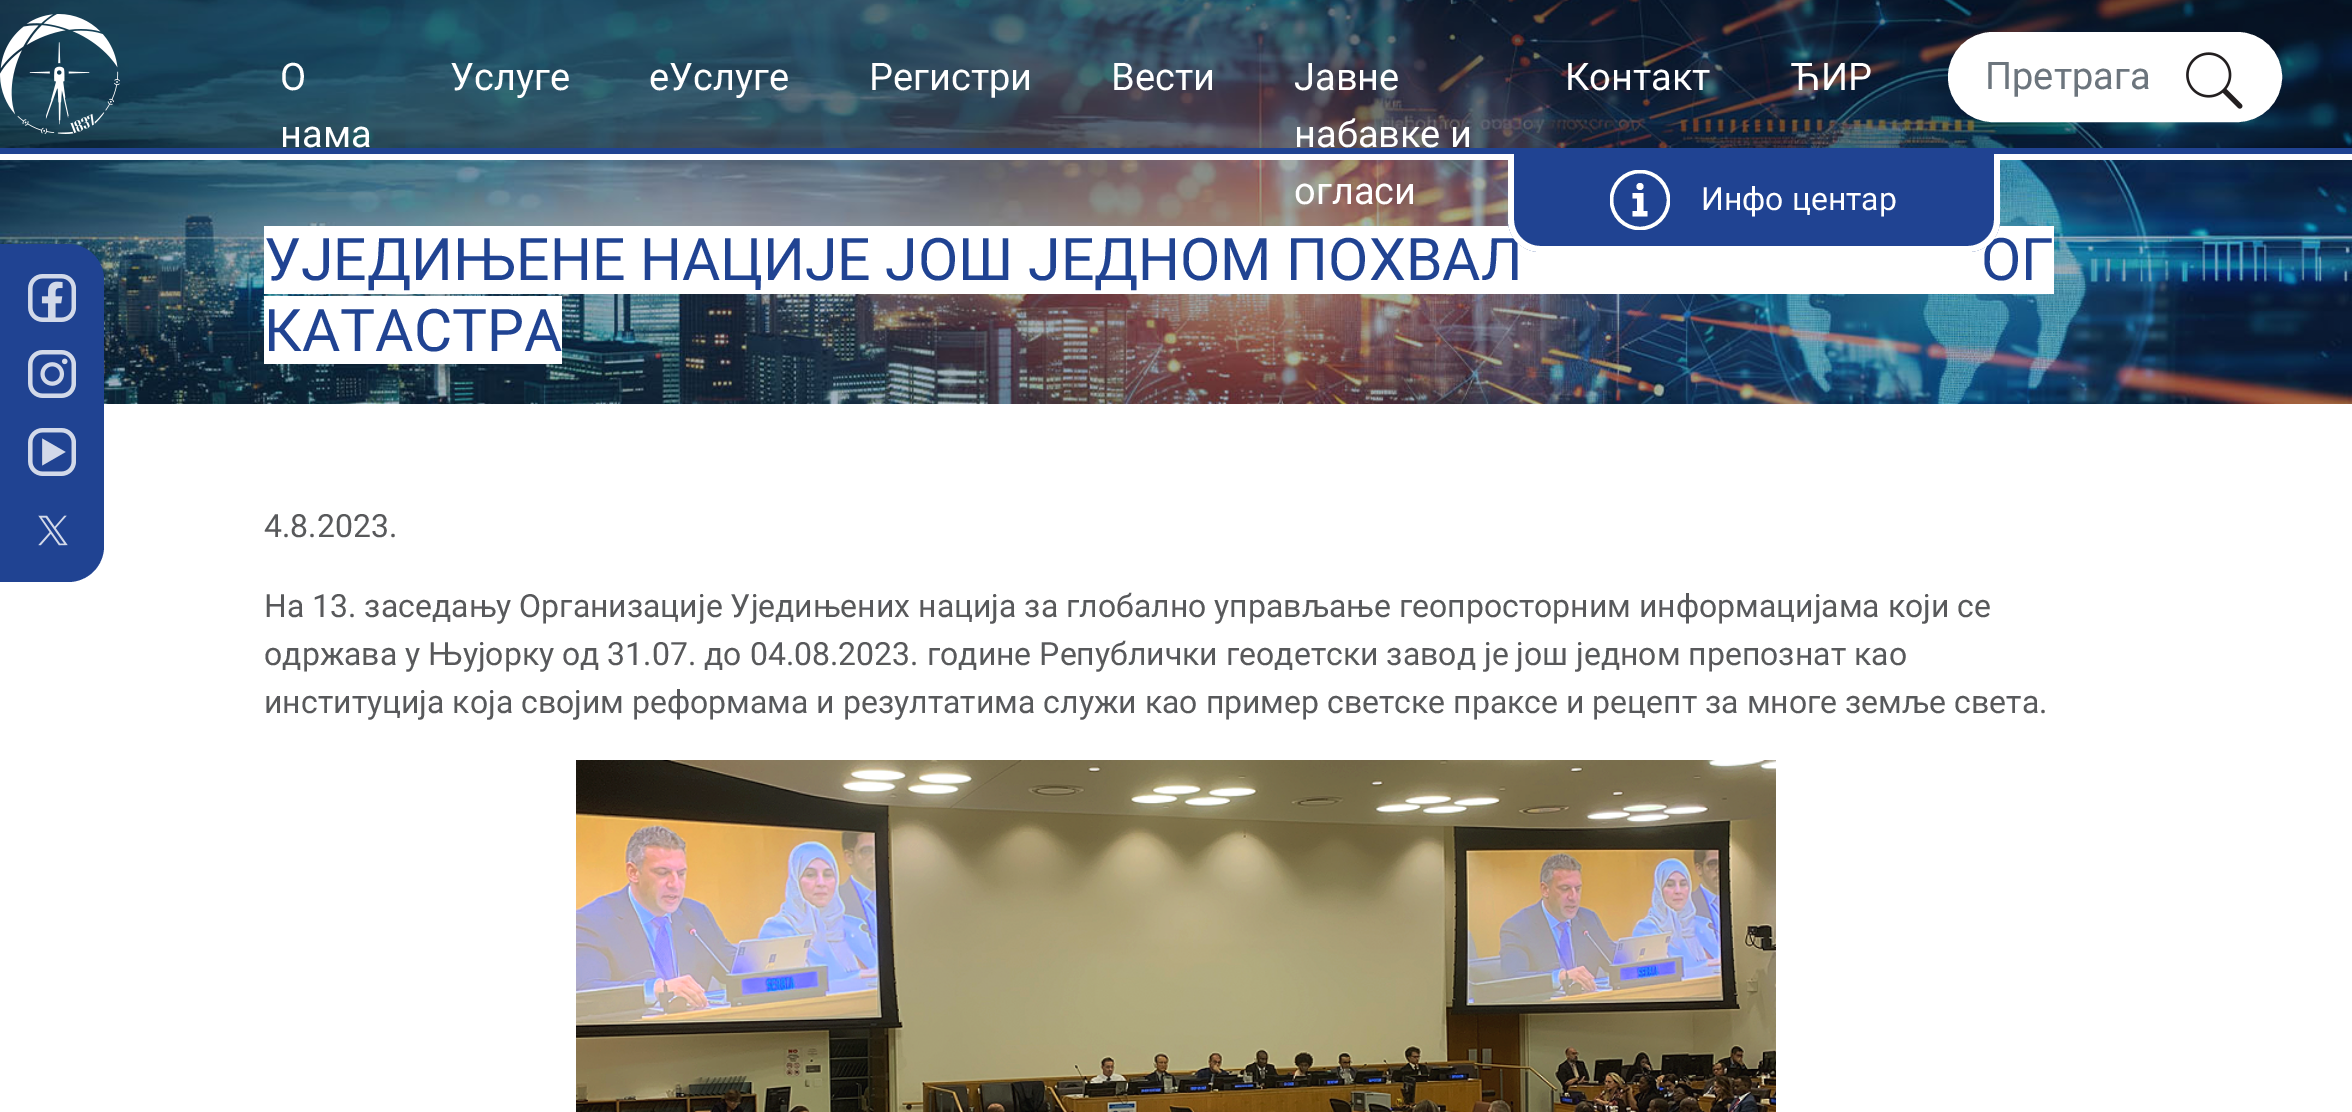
%!PS
<< /PageSize [2352 1112] /PageUsesTransparency true >> setpagedevice
/rgb { 3 { 255 div 3 1 roll } repeat setrgbcolor } def
/font { [ exch dup neg 0 0 3 -1 roll 0 0 ] selectfont } def
/alpha { dup .setfillconstantalpha .setstrokeconstantalpha } def
/circle { newpath 0 360 arc closepath } def
/roundrect { 5 dict begin { /r /h /w /y /x } { exch def } forall
  x r add y moveto x w add y 2 copy h add r arct x w add y h add x 1 index r arct
  x y h add x y r arct x y 2 copy exch w add exch r arct closepath end } def
/picture { 5 dict begin { /h /w /y /x /name } { exch def } forall
  gsave x y translate w h scale
  w h 8 [w 0 0 h 0 0] name (r) file false 3 colorimage grestore end } def
0 .pushpdf14devicefilter
0 1112 translate 1 -1 scale
4 setmiterlimit
255 255 255 rgb
0 0 2352 1112 rectfill
(img/7.rgb) 0 0 2352 404 picture
0.3 alpha
0 0 0 rgb
0 0 2352 148 rectfill
1 alpha
(img/1.rgb) 0 14 120 120 picture
255 255 255 rgb
1950 34 330 86 43 roundrect gsave fill grestore
4 setlinewidth
stroke
(img/2.rgb) 2186 52 57 57 picture
[
  [0 148 2352 6 32 67 146]
  [0 154 2352 6 255 255 255]
  [264 226 1790 68 255 255 255]
] { aload pop rgb rectfill } forall
32 67 146 rgb
1508 154 moveto 2000 154 lineto 2000 220 lineto 2000 237.5 1985.5 252 1968 252 curveto 1540 252 lineto 1522.5 252 1508 237.5 1508 220 curveto closepath fill
0 244 moveto 68 244 lineto 88 244 104 260 104 280 curveto 104 546 lineto 104 566 88 582 68 582 curveto 0 582 lineto closepath fill
(img/3.rgb) 28 274 48 48 picture
(img/4.rgb) 28 350 48 48 picture
(img/5.rgb) 28 428 48 48 picture
(img/6.rgb) 38 515 30 31 picture
255 255 255 rgb
264 296 298 68 rectfill
(img/8.rgb) 576 760 1200 352 picture
/Roboto-Regular 38 font
[
  [(О) 280 90]
  [(нама) 280 147]
  [(Услуге) 450 90]
  [(еУслуге) 649 90]
  [(Регистри) 869 90]
  [(Вести) 1111 90]
  [(Јавне) 1294 90]
  [(набавке и) 1294 147]
  [(огласи) 1294 204]
  [(Контакт) 1565 90]
  [(ЋИР) 1790 90]
] { aload pop moveto show } forall
108 117 125 rgb
1985 89 moveto (Претрага) show
/Roboto-Regular 58.8 font
32 67 146 rgb
264 280 moveto (УЈЕДИЊЕНЕ НАЦИЈЕ ЈОШ ЈЕДНОМ ПОХВАЛ) show
1981 280 moveto (ОГ) show
255 255 255 rgb
1508 154 moveto 2000 154 lineto 2000 220 lineto 2000 238 1986 252 1968 252 curveto 1540 252 lineto 1522 252 1508 238 1508 220 curveto closepath 1514 154 moveto 1994 154 lineto 1994 220 lineto 1994 234 1982 246 1968 246 curveto 1540 246 lineto 1526 246 1514 234 1514 220 curveto closepath eofill
/Roboto-Regular 32 font
1701 210 moveto (Инфо центар) show
gsave
1610 170 60 60 rectclip
3.5 setlinewidth
1640 200 28.5 circle stroke
grestore
1640 186.5 3.5 circle fill
1632.5 211 moveto 1637 211 lineto 1637 198.5 lineto 1632.5 198.5 lineto 1632.5 193 lineto 1643.5 193 lineto 1643.5 211 lineto 1647.5 211 lineto 1647.5 216.5 lineto 1632.5 216.5 lineto closepath fill
/Roboto-Regular 58.8 font
32 67 146 rgb
264 351 moveto (КАТАСТРА) show
/Roboto-Regular 32 font
88 89 91 rgb
[
  [(4.8.2023.) 264 537]
  [(На 13. заседању Организације Уједињених нација за глобално управљање геопросторним информацијама који се) 264 617]
  [(одржава у Њујорку од 31.07. до 04.08.2023. године Републички геодетски завод је још једном препознат као) 264 665]
  [(институција која својим реформама и резултатима служи као пример светске праксе и рецепт за многе земље света.) 264 713]
] { aload pop moveto show } forall
.poppdf14devicefilter showpage
